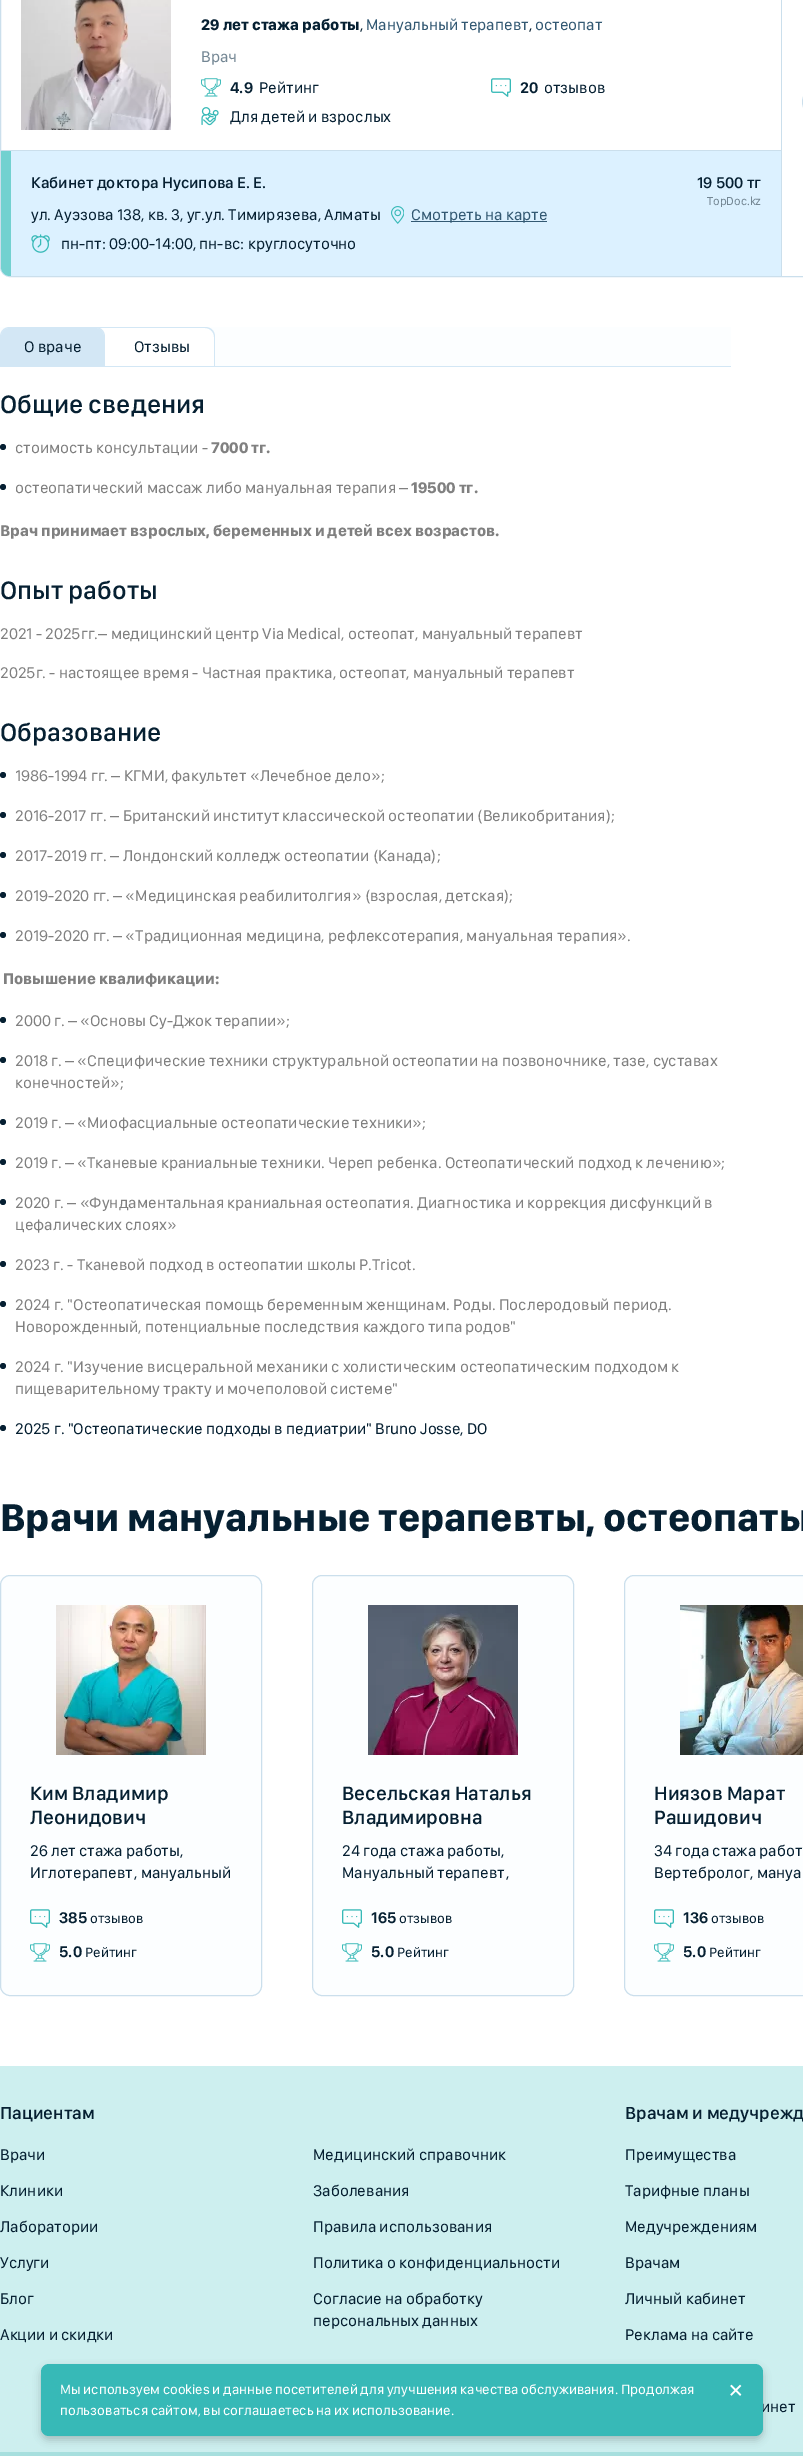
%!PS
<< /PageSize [803 2456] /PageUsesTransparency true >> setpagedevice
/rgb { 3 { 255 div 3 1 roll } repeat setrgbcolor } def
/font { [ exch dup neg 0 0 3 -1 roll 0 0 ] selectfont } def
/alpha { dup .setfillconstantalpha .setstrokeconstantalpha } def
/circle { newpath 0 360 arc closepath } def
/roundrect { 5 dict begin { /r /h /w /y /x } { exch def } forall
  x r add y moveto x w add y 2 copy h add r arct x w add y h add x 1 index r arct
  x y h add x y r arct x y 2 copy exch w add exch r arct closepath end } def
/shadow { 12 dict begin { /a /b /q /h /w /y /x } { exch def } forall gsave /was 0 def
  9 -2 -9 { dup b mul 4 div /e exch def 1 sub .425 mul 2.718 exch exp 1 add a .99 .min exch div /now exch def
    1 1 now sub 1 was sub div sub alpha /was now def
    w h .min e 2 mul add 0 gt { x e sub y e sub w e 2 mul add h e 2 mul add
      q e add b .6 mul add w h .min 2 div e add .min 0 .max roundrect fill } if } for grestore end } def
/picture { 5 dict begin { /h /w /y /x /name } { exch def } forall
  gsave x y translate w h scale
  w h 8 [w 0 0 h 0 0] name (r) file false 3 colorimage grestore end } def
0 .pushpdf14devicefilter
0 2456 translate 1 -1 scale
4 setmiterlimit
255 255 255 rgb
0 0 803 2456 rectfill
203 223 236 rgb
0.5 -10.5 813 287 9.5 roundrect stroke
(img/1.rgb) 21 0 150 130 picture
(img/2.rgb) 201 78 20 19 picture
(img/3.rgb) 491 78 20 19 picture
(img/4.rgb) 201 107 18 19 picture
1 150 780 1 rectfill
220 241 255 rgb
1 151 moveto 781 151 lineto 781 276 lineto 10 276 lineto 5 276 1 272 1 267 curveto closepath fill
114 209 208 rgb
1 151 moveto 11 151 lineto 11 276 lineto 10 276 lineto 5 276 1 272 1 267 curveto closepath fill
(img/5.rgb) 391 206 13 18 picture
51 89 115 rgb
411 221 136 1 rectfill
(img/6.rgb) 31 234 19 19 picture
203 223 236 rgb
781 0 1 276 rectfill
802.5 86.5 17 31 15.5 roundrect stroke
252 254 255 rgb
0 327 731 39 rectfill
211 231 245 rgb
0 366 731 1 rectfill
255 255 255 rgb
88 328 moveto 205 328 lineto 210 328 214 332 214 337 curveto 214 366 lineto 79 366 lineto 79 337 lineto 79 332 83 328 88 328 curveto closepath fill
211 231 245 rgb
88 327 moveto 205 327 lineto 211 327 215 331 215 337 curveto 215 366 lineto 78 366 lineto 78 337 lineto 78 331 82 327 88 327 curveto closepath 88 328 moveto 205 328 lineto 210 328 214 332 214 337 curveto 214 366 lineto 79 366 lineto 79 337 lineto 79 332 83 328 88 328 curveto closepath eofill
10 328 moveto 95 328 lineto 100 328 104 332 104 337 curveto 104 366 lineto 1 366 lineto 1 337 lineto 1 332 5 328 10 328 curveto closepath fill
10 327 moveto 95 327 lineto 101 327 105 331 105 337 curveto 105 366 lineto 0 366 lineto 0 337 lineto 0 331 4 327 10 327 curveto closepath 10 328 moveto 95 328 lineto 100 328 104 332 104 337 curveto 104 366 lineto 1 366 lineto 1 337 lineto 1 332 5 328 10 328 curveto closepath eofill
6 32 50 rgb
3 447 3 circle fill
3 487 3 circle fill
3 775 3 circle fill
3 815 3 circle fill
3 855 3 circle fill
3 895 3 circle fill
3 935 3 circle fill
3 1020 3 circle fill
3 1060 3 circle fill
3 1122 3 circle fill
3 1162 3 circle fill
3 1202 3 circle fill
3 1264 3 circle fill
3 1304 3 circle fill
3 1366 3 circle fill
3 1428 3 circle fill
252 254 255 rgb
0.5 1575.5 261 420 9.5 roundrect gsave fill grestore
203 223 236 rgb
stroke
(img/7.rgb) 56 1605 150 150 picture
(img/8.rgb) 30 1909 20 19 picture
(img/9.rgb) 30 1943 20 19 picture
252 254 255 rgb
312.5 1575.5 261 420 9.5 roundrect gsave fill grestore
203 223 236 rgb
stroke
(img/10.rgb) 368 1605 150 150 picture
(img/8.rgb) 342 1909 20 19 picture
(img/9.rgb) 342 1943 20 19 picture
252 254 255 rgb
624.5 1575.5 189 420 9.5 roundrect gsave fill grestore
203 223 236 rgb
stroke
(img/11.rgb) 680 1605 123 150 picture
(img/8.rgb) 654 1909 20 19 picture
(img/9.rgb) 654 1943 20 19 picture
205 239 239 rgb
0 2066 803 386 rectfill
167 223 222 rgb
0 2452 803 4 rectfill
0 0 0 rgb
41 2368 722 72 8 4 0.2 shadow
/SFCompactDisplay-Bold 16 font
6 32 50 rgb
201 30 moveto (29 лет стажа работы) show
/SFCompactDisplay-Regular 16 font
360 30 moveto (,) show
51 89 115 rgb
366 30 moveto (Мануальный терапевт) show
6 32 50 rgb
529 30 moveto (,) show
51 89 115 rgb
535 30 moveto (остеопат) show
116 135 148 rgb
201 62 moveto (Врач) show
/SFCompactDisplay-SemiBold 16 font
6 32 50 rgb
230 93 moveto (4.9) show
/SFCompactDisplay-Regular 16 font
259 93 moveto (Рейтинг) show
/SFCompactDisplay-SemiBold 16 font
520 93 moveto (20) show
/SFCompactDisplay-Regular 16 font
544 93 moveto (отзывов) show
230 122 moveto (Для детей и взрослых) show
/SFCompactDisplay-Medium 16 font
31 188 moveto (Кабинет доктора Нусипова Е. Е.) show
/SFCompactDisplay-Regular 16 font
31 220 moveto (ул. Ауэзова 138, кв. 3, уг.ул. Тимирязева, Алматы) show
51 89 115 rgb
411 220 moveto (Смотреть на карте) show
6 32 50 rgb
61 249 moveto (пн-пт: 09:00-14:00, пн-вс: круглосуточно) show
/SFCompactDisplay-Medium 16 font
697 188 moveto (19 500 тг) show
/SFCompactDisplay-Regular 12 font
116 135 148 rgb
707 205 moveto (TopDoc.kz) show
/SFCompactDisplay-Regular 16 font
6 32 50 rgb
24 352 moveto (О враче) show
134 352 moveto (Отзывы) show
/SFCompactDisplay-Medium 26 font
0 413 moveto (Общие сведения) show
/SFCompactDisplay-Regular 16 font
128 128 128 rgb
15 453 moveto (стоимость консультации -) show
/SFCompactDisplay-Bold 16 font
211 453 moveto (7000 тг.) show
/SFCompactDisplay-Regular 16 font
15 493 moveto (остеопатический массаж либо мануальная терапия –) show
/SFCompactDisplay-Bold 16 font
411 493 moveto (19500 тг.) show
0 536 moveto (Врач принимает взрослых, беременных и детей всех возрастов.) show
/SFCompactDisplay-Medium 26 font
6 32 50 rgb
0 599 moveto (Опыт работы) show
/SFCompactDisplay-Regular 16 font
128 128 128 rgb
0 639 moveto (2021 - 2025гг.– медицинский центр Via Medical, остеопат, мануальный терапевт) show
0 678 moveto (2025г. - настоящее время - Частная практика, остеопат, мануальный терапевт) show
/SFCompactDisplay-Medium 26 font
6 32 50 rgb
0 741 moveto (Образование) show
/SFCompactDisplay-Regular 16 font
128 128 128 rgb
[
  [(1986-1994 гг. – КГМИ, факультет «Лечебное дело»;) 15 781]
  [(2016-2017 гг. – Британский институт классической остеопатии \(Великобритания\);) 15 821]
  [(2017-2019 гг. – Лондонский колледж остеопатии \(Канада\);) 15 861]
  [(2019-2020 гг. – «Медицинская реабилитолгия» \(взрослая, детская\);) 15 901]
  [(2019-2020 гг. – «Традиционная медицина, рефлексотерапия, мануальная терапия».) 15 941]
] { aload pop moveto show } forall
/SFCompactDisplay-Bold 16 font
3 984 moveto (Повышение квалификации:) show
/SFCompactDisplay-Regular 16 font
[
  [(2000 г. – «Основы Су-Джок терапии»;) 15 1026]
  [(2018 г. – «Специфические техники структуральной остеопатии на позвоночнике, тазе, суставах) 15 1066]
  [(конечностей»;) 15 1088]
  [(2019 г. – «Миофасциальные остеопатические техники»;) 15 1128]
  [(2019 г. – «Тканевые краниальные техники. Череп ребенка. Остеопатический подход к лечению»;) 15 1168]
  [(2020 г. – «Фундаментальная краниальная остеопатия. Диагностика и коррекция дисфункций в) 15 1208]
  [(цефалических слоях») 15 1230]
  [(2023 г. - Тканевой подход в остеопатии школы P.Tricot.) 15 1270]
  [(2024 г. "Остеопатическая помощь беременным женщинам. Роды. Послеродовый период.) 15 1310]
  [(Новорожденный, потенциальные последствия каждого типа родов") 15 1332]
  [(2024 г. "Изучение висцеральной механики с холистическим остеопатическим подходом к) 15 1372]
  [(пищеварительному тракту и мочеполовой системе") 15 1394]
] { aload pop moveto show } forall
6 32 50 rgb
15 1434 moveto (2025 г. "Остеопатические подходы в педиатрии" Bruno Josse, DO) show
/SFCompactDisplay-Bold 40 font
0 1531 moveto (Врачи мануальные терапевты, остеопаты) show
/SFCompactDisplay-Medium 20 font
30 1800 moveto (Ким Владимир) show
30 1824 moveto (Леонидович) show
/SFCompactDisplay-Regular 16 font
[
  [(26 лет стажа работы,) 30 1856]
  [(Иглотерапевт) 30 1878]
  [(, мануальный) 134 1878]
] { aload pop moveto show } forall
/SFCompactDisplay-SemiBold 16 font
59 1923 moveto (385) show
/SFCompactDisplay-Regular 14 font
90 1923 moveto (отзывов) show
/SFCompactDisplay-SemiBold 16 font
59 1957 moveto (5.0) show
/SFCompactDisplay-Regular 14 font
85 1957 moveto (Рейтинг) show
/SFCompactDisplay-Medium 20 font
342 1800 moveto (Весельская Наталья) show
342 1824 moveto (Владимировна) show
/SFCompactDisplay-Regular 16 font
[
  [(24 года стажа работы,) 342 1856]
  [(Мануальный терапевт) 342 1878]
  [(,) 506 1878]
] { aload pop moveto show } forall
/SFCompactDisplay-SemiBold 16 font
371 1923 moveto (165) show
/SFCompactDisplay-Regular 14 font
399 1923 moveto (отзывов) show
/SFCompactDisplay-SemiBold 16 font
371 1957 moveto (5.0) show
/SFCompactDisplay-Regular 14 font
397 1957 moveto (Рейтинг) show
/SFCompactDisplay-Medium 20 font
654 1800 moveto (Ниязов Марат) show
654 1824 moveto (Рашидович) show
/SFCompactDisplay-Regular 16 font
[
  [(34 года стажа работ) 654 1856]
  [(Вертебролог) 654 1878]
  [(, мануа) 750 1878]
] { aload pop moveto show } forall
/SFCompactDisplay-SemiBold 16 font
683 1923 moveto (136) show
/SFCompactDisplay-Regular 14 font
711 1923 moveto (отзывов) show
/SFCompactDisplay-SemiBold 16 font
683 1957 moveto (5.0) show
/SFCompactDisplay-Regular 14 font
709 1957 moveto (Рейтинг) show
/SFCompactDisplay-Medium 18 font
0 2119 moveto (Пациентам) show
/SFCompactDisplay-Regular 16 font
[
  [(Врачи) 0 2160]
  [(Медицинский справочник) 313 2160]
  [(Клиники) 0 2196]
  [(Заболевания) 313 2196]
  [(Лаборатории) 0 2232]
  [(Правила использования) 313 2232]
  [(Услуги) 0 2268]
  [(Политика о конфиденциальности) 313 2268]
  [(Блог) 0 2304]
  [(Согласие на обработку) 313 2304]
  [(персональных данных) 313 2326]
  [(Акции и скидки) 0 2340]
] { aload pop moveto show } forall
/SFCompactDisplay-Medium 18 font
625 2119 moveto (Врачам и медучрежд) show
/SFCompactDisplay-Regular 16 font
[
  [(Преимущества) 625 2160]
  [(Тарифные планы) 625 2196]
  [(Медучреждениям) 625 2232]
  [(Врачам) 625 2268]
  [(Личный кабинет) 625 2304]
  [(Реклама на сайте) 625 2340]
  [(инет) 761 2412]
] { aload pop moveto show } forall
55 185 183 rgb
41 2364 722 72 8 roundrect fill
/SFCompactDisplay-Regular 14 font
255 255 255 rgb
60 2394 moveto (Мы используем cookies и данные посетителей для улучшения качества обслуживания. Продолжая) show
60 2415 moveto (пользоваться сайтом, вы соглашаетесь на их использование.) show
/SFCompactDisplay-Regular 28 font
728 2397 moveto (×) show
.poppdf14devicefilter showpage
